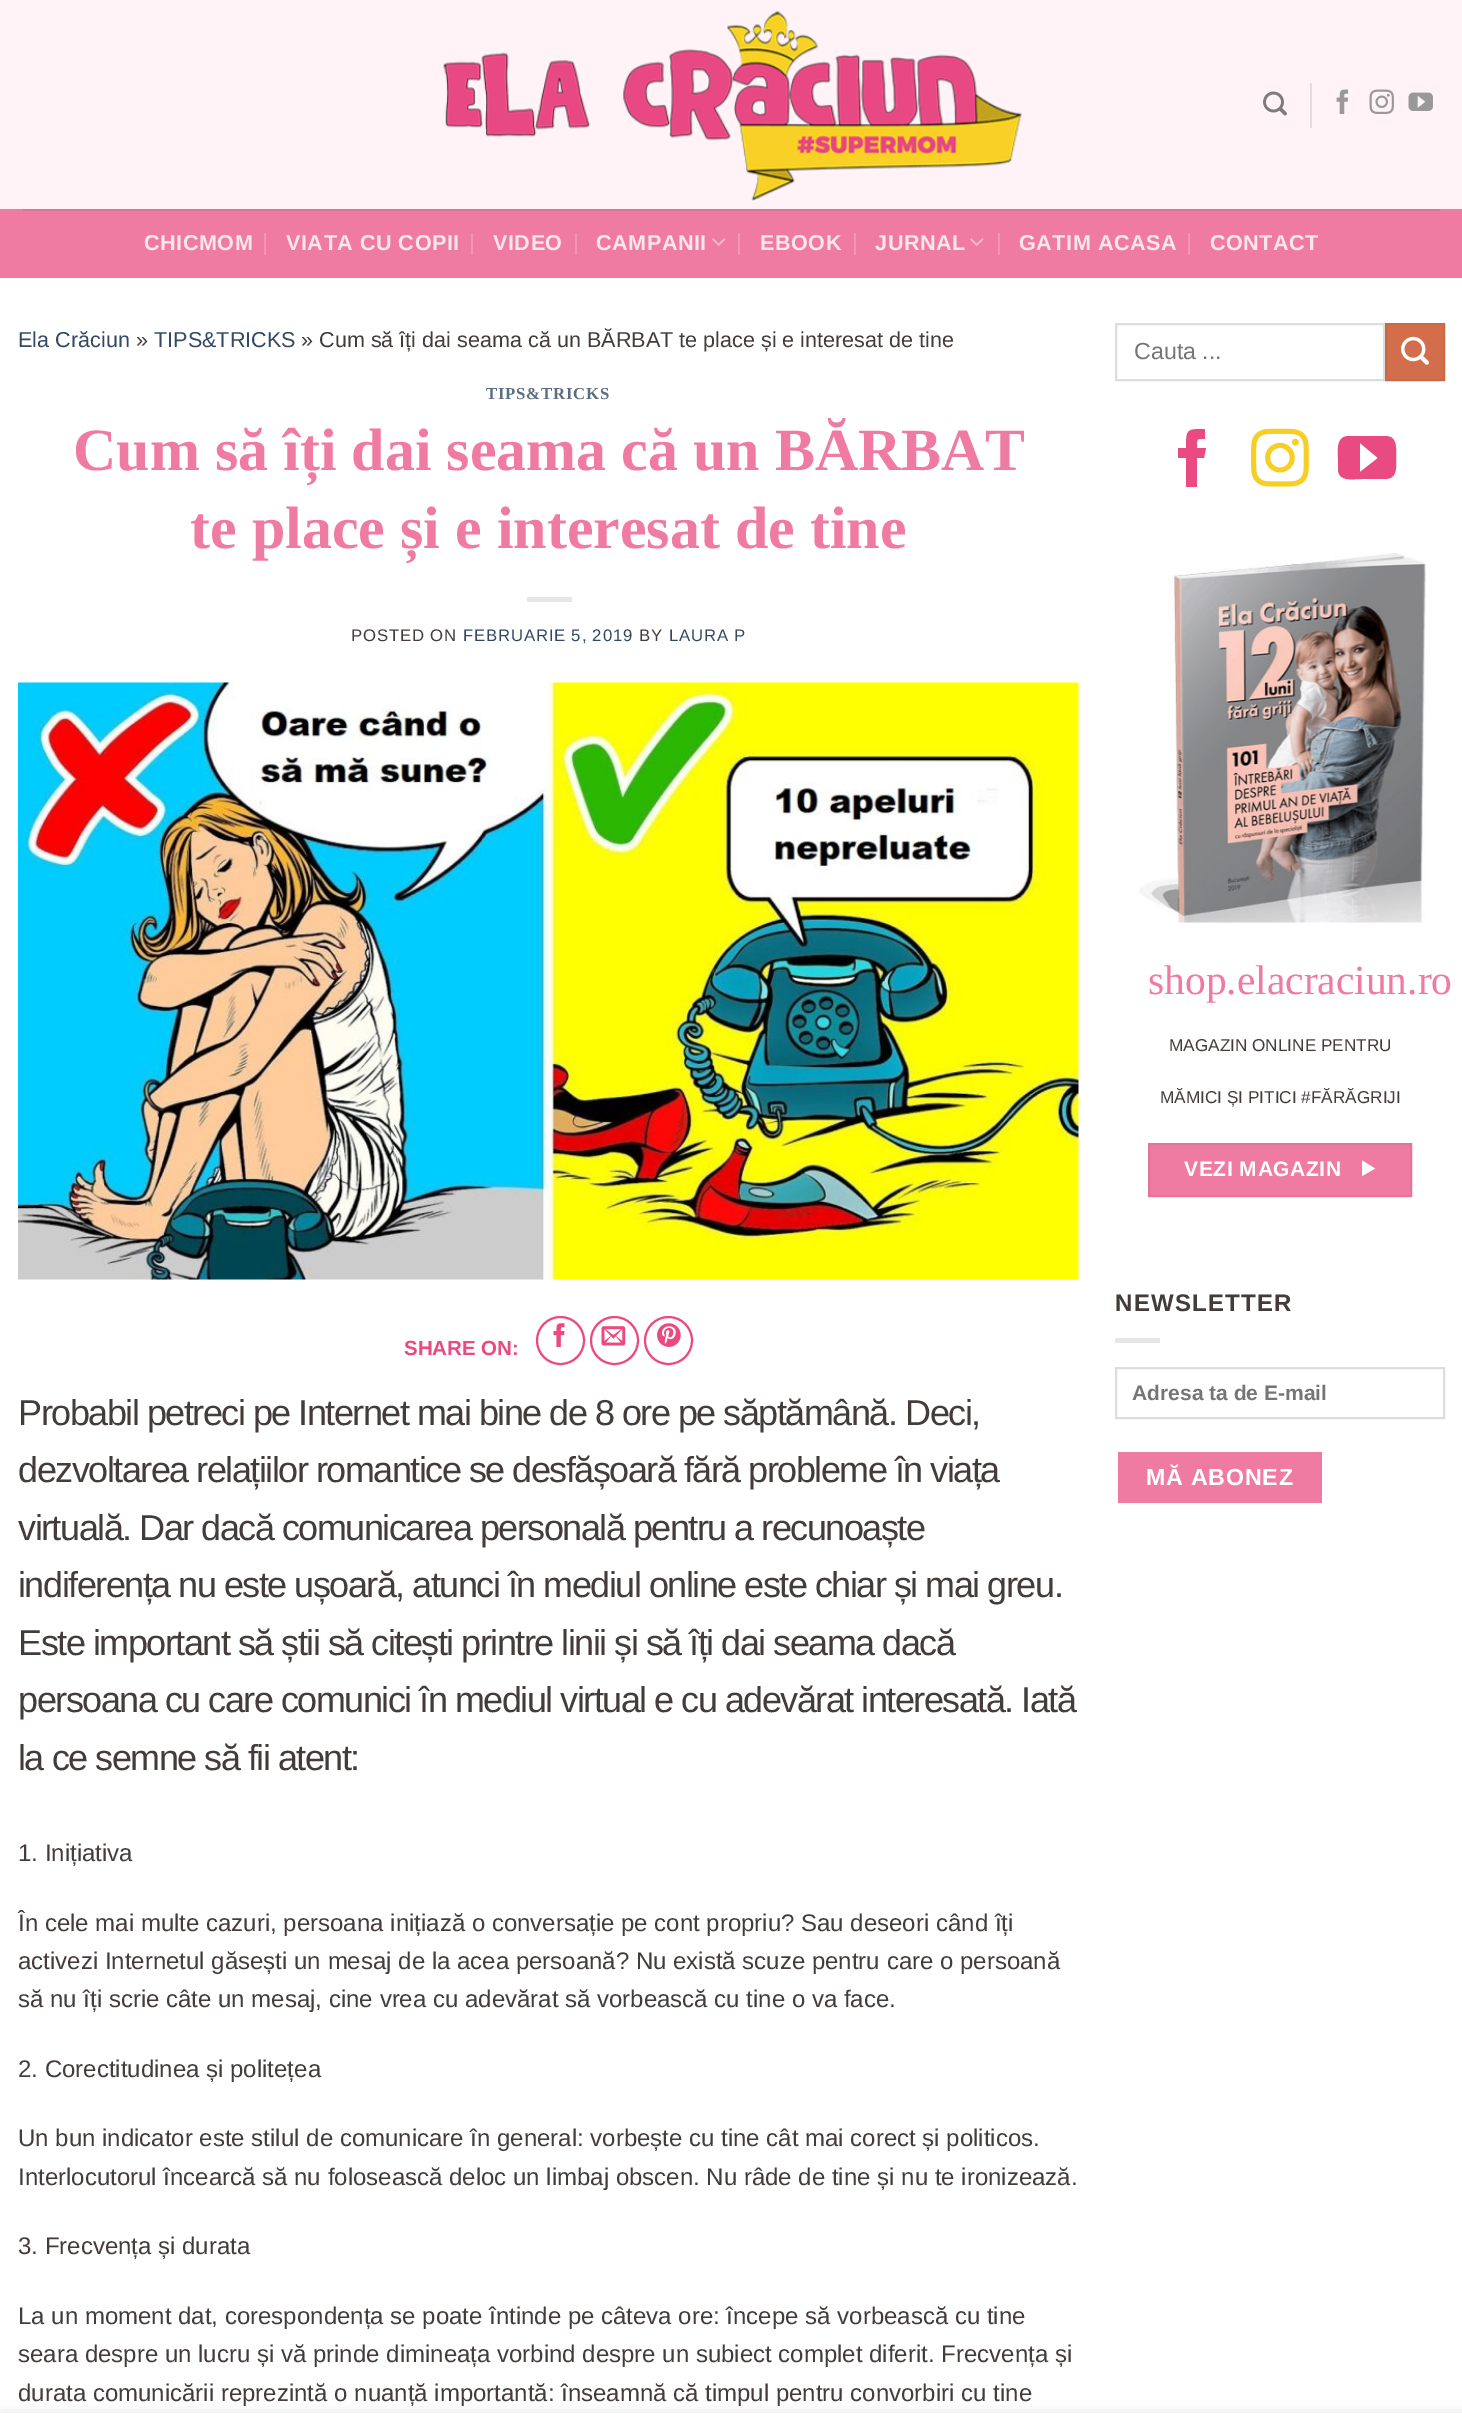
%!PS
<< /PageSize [1462 2413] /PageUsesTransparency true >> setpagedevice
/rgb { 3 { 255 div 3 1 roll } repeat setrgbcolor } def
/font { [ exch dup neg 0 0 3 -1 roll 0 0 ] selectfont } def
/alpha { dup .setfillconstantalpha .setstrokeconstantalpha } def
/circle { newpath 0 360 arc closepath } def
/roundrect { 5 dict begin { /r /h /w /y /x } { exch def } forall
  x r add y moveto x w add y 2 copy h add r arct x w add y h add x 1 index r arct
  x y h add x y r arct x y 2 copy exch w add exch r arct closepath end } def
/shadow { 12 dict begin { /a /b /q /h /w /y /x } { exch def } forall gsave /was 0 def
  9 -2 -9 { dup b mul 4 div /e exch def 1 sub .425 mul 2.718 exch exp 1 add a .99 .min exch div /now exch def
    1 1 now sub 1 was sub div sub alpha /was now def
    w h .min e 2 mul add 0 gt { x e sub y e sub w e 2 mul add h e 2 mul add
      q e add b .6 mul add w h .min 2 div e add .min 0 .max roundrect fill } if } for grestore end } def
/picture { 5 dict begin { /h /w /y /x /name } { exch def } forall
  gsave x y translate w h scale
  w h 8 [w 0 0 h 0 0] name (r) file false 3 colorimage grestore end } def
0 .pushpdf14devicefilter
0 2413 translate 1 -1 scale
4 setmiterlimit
255 255 255 rgb
0 0 1462 2413 rectfill
255 243 247 rgb
0 0 1462 209 rectfill
(img/1.rgb) 443 11 579 190 picture
(img/2.rgb) 1263 91 24 25 picture
230 219 222 rgb
1310 83 2 45 rectfill
(img/3.rgb) 1336 89 13 25 picture
(img/4.rgb) 1369 89 25 25 picture
(img/5.rgb) 1408 92 25 19 picture
[
  [0 209 1462 69 239 123 163]
  [23 209 1417 2 222 117 153]
  [264 233 2 22 242 149 181]
  [471 233 2 22 242 149 181]
  [575 233 2 22 242 149 181]
] { aload pop rgb rectfill } forall
(img/6.rgb) 712 238 14 8 picture
738 233 2 22 rectfill
854 233 2 22 rectfill
(img/6.rgb) 970 238 14 8 picture
[
  [998 233 2 22 242 149 181]
  [1188 233 2 22 242 149 181]
  [527 597 45 5 230 230 230]
] { aload pop rgb rectfill } forall
(img/7.rgb) 18 682 1061 598 picture
233 74 129 rgb
2 setlinewidth
560.5 1340.5 23.5 circle stroke
(img/8.rgb) 553 1323 12 24 picture
614.5 1340.5 23.5 circle stroke
(img/9.rgb) 601 1326 25 20 picture
668.5 1340.5 23.5 circle stroke
(img/10.rgb) 657 1323 24 24 picture
221 221 221 rgb
1116 324 268 56 rectstroke
210 110 75 rgb
1386 324 moveto 1444 324 lineto 1444 380 lineto 1386 380 lineto closepath gsave fill grestore
200 105 71 rgb
stroke
(img/11.rgb) 1401 336 28 29 picture
233 74 129 rgb
1197 487 moveto 1186 487 lineto 1186 458 lineto 1178 458 lineto 1178 448 lineto 1186 448 lineto 1186 429 1187 429 1205 429 curveto 1205 439 lineto 1196 439 1197 438 1197 448 curveto 1206 448 lineto 1204 458 lineto 1197 458 lineto closepath fill
(img/12.rgb) 1251 428 58 59 picture
1385 436 moveto 1348 436 lineto 1336 437 1338 450 1338 458 curveto 1338 470 lineto 1339 482 1353 479 1361 479 curveto 1386 479 lineto 1398 478 1396 466 1396 458 curveto 1396 449 1398 436 1385 436 curveto closepath 1360 472 moveto 1360 443 lineto 1378 458 lineto closepath fill
(img/13.rgb) 1139 553 287 370 picture
239 123 163 rgb
1149 1144 moveto 1411 1144 lineto 1411 1196 lineto 1149 1196 lineto closepath gsave fill grestore
227 117 155 rgb
stroke
255 255 255 rgb
1362 1160.5 moveto 1375 1168.5 lineto 1362 1176 lineto closepath fill
230 230 230 rgb
1115 1338 45 5 rectfill
221 221 221 rgb
1116 1368 328 50 rectstroke
239 123 163 rgb
1118 1452 204 51 rectfill
0 0 0 rgb
0 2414 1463 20 0 7 0.14 shadow
/LiberationSans-Bold 21.6 font
252 229 237 rgb
144 250 moveto 0.5 0 (CHICMOM) ashow
286 250 moveto 0.5 0 (VIATA CU COPII) ashow
493 250 moveto 0.5 0 (VIDEO) ashow
596 250 moveto 0.5 0 (CAMPANII) ashow
760 250 moveto 0.5 0 (EBOOK) ashow
875 250 moveto 0.5 0 (JURNAL) ashow
1019 250 moveto 0.5 0 (GATIM ACASA) ashow
1210 250 moveto 0.5 0 (CONTACT) ashow
/LiberationSans-Regular 21.6 font
51 72 98 rgb
18 347 moveto (Ela Crăciun) show
68 59 59 rgb
136 347 moveto (») show
51 72 98 rgb
154 347 moveto (TIPS&TRICKS) show
68 59 59 rgb
301 347 moveto (» Cum să îți dai seama că un BĂRBAT te place și e interesat de tine) show
/LiberationSerif-Bold 16.75 font
92 109 129 rgb
486 399 moveto 0.8 0 (TIPS&TRICKS) ashow
/LiberationSerif-Bold 60 font
239 123 163 rgb
73 470 moveto (Cum să îți dai seama că un BĂRBAT) show
190 548 moveto (te place și e interesat de tine) show
/LiberationSans-Regular 16.75 font
68 59 59 rgb
351 641 moveto 0.8 0 (POSTED ON) ashow
51 72 98 rgb
463 641 moveto 0.8 0 (FEBRUARIE 5, 2019) ashow
68 59 59 rgb
639 641 moveto 0.8 0 (BY) ashow
51 72 98 rgb
669 641 moveto 0.8 0 (LAURA P) ashow
/LiberationSans-Bold 20.5 font
233 74 129 rgb
404 1355 moveto (SHARE ON:) show
/LiberationSans-Regular 36 font
68 59 59 rgb
18 1425 moveto -1.5 0 (Probabil petreci pe Internet mai bine de 8 ore pe săptămână. Deci,) ashow
18 1482 moveto -1.5 0 (dezvoltarea relațiilor romantice se desfășoară fără probleme în viața) ashow
18 1540 moveto -1.5 0 (virtuală. Dar dacă comunicarea personală pentru a recunoaște) ashow
18 1597 moveto -1.5 0 (indiferența nu este ușoară, atunci în mediul online este chiar și mai greu.) ashow
18 1655 moveto -1.5 0 (Este important să știi să citești printre linii și să îți dai seama dacă) ashow
18 1712 moveto -1.5 0 (persoana cu care comunici în mediul virtual e cu adevărat interesată. Iată) ashow
18 1770 moveto -1.5 0 (la ce semne să fii atent:) ashow
/LiberationSans-Regular 24 font
[
  [(1. Inițiativa) 18 1861]
  [(În cele mai multe cazuri, persoana inițiază o conversație pe cont propriu? Sau deseori când îți) 18 1931]
  [(activezi Internetul găsești un mesaj de la acea persoană? Nu există scuze pentru care o persoană) 18 1969]
  [(să nu îți scrie câte un mesaj, cine vrea cu adevărat să vorbească cu tine o va face.) 18 2007]
  [(2. Corectitudinea și politețea) 18 2077]
  [(Un bun indicator este stilul de comunicare în general: vorbește cu tine cât mai corect și politicos.) 18 2146]
  [(Interlocutorul încearcă să nu folosească deloc un limbaj obscen. Nu râde de tine și nu te ironizează.) 18 2185]
  [(3. Frecvența și durata) 18 2254]
  [(La un moment dat, corespondența se poate întinde pe câteva ore: începe să vorbească cu tine) 18 2324]
  [(seara despre un lucru și vă prinde dimineața vorbind despre un subiect complet diferit. Frecvența și) 18 2362]
  [(durata comunicării reprezintă o nuanță importantă: înseamnă că timpul pentru convorbiri cu tine) 18 2401]
] { aload pop moveto show } forall
/LiberationSans-Regular 23.25 font
117 117 117 rgb
1134 359 moveto (Cauta ...) show
/LiberationSerif-Regular 41.5 font
239 123 163 rgb
1148 994 moveto (shop.elacraciun.ro) show
/LiberationSans-Regular 17.2 font
68 59 59 rgb
1169 1051 moveto (MAGAZIN ONLINE PENTRU) show
1160 1103 moveto (MĂMICI ȘI PITICI #FĂRĂGRIJI) show
/LiberationSans-Bold 21 font
255 255 255 rgb
1184 1176 moveto 0.6 0 (VEZI MAGAZIN) ashow
/LiberationSans-Bold 24 font
68 59 59 rgb
1115 1311 moveto 1.25 0 (NEWSLETTER) ashow
/LiberationSans-Bold 21 font
117 117 117 rgb
1132 1400 moveto (Adresa ta de E-mail) show
/LiberationSans-Bold 23.25 font
255 255 255 rgb
1146 1485 moveto 0.75 0 (MĂ ABONEZ) ashow
.poppdf14devicefilter showpage
